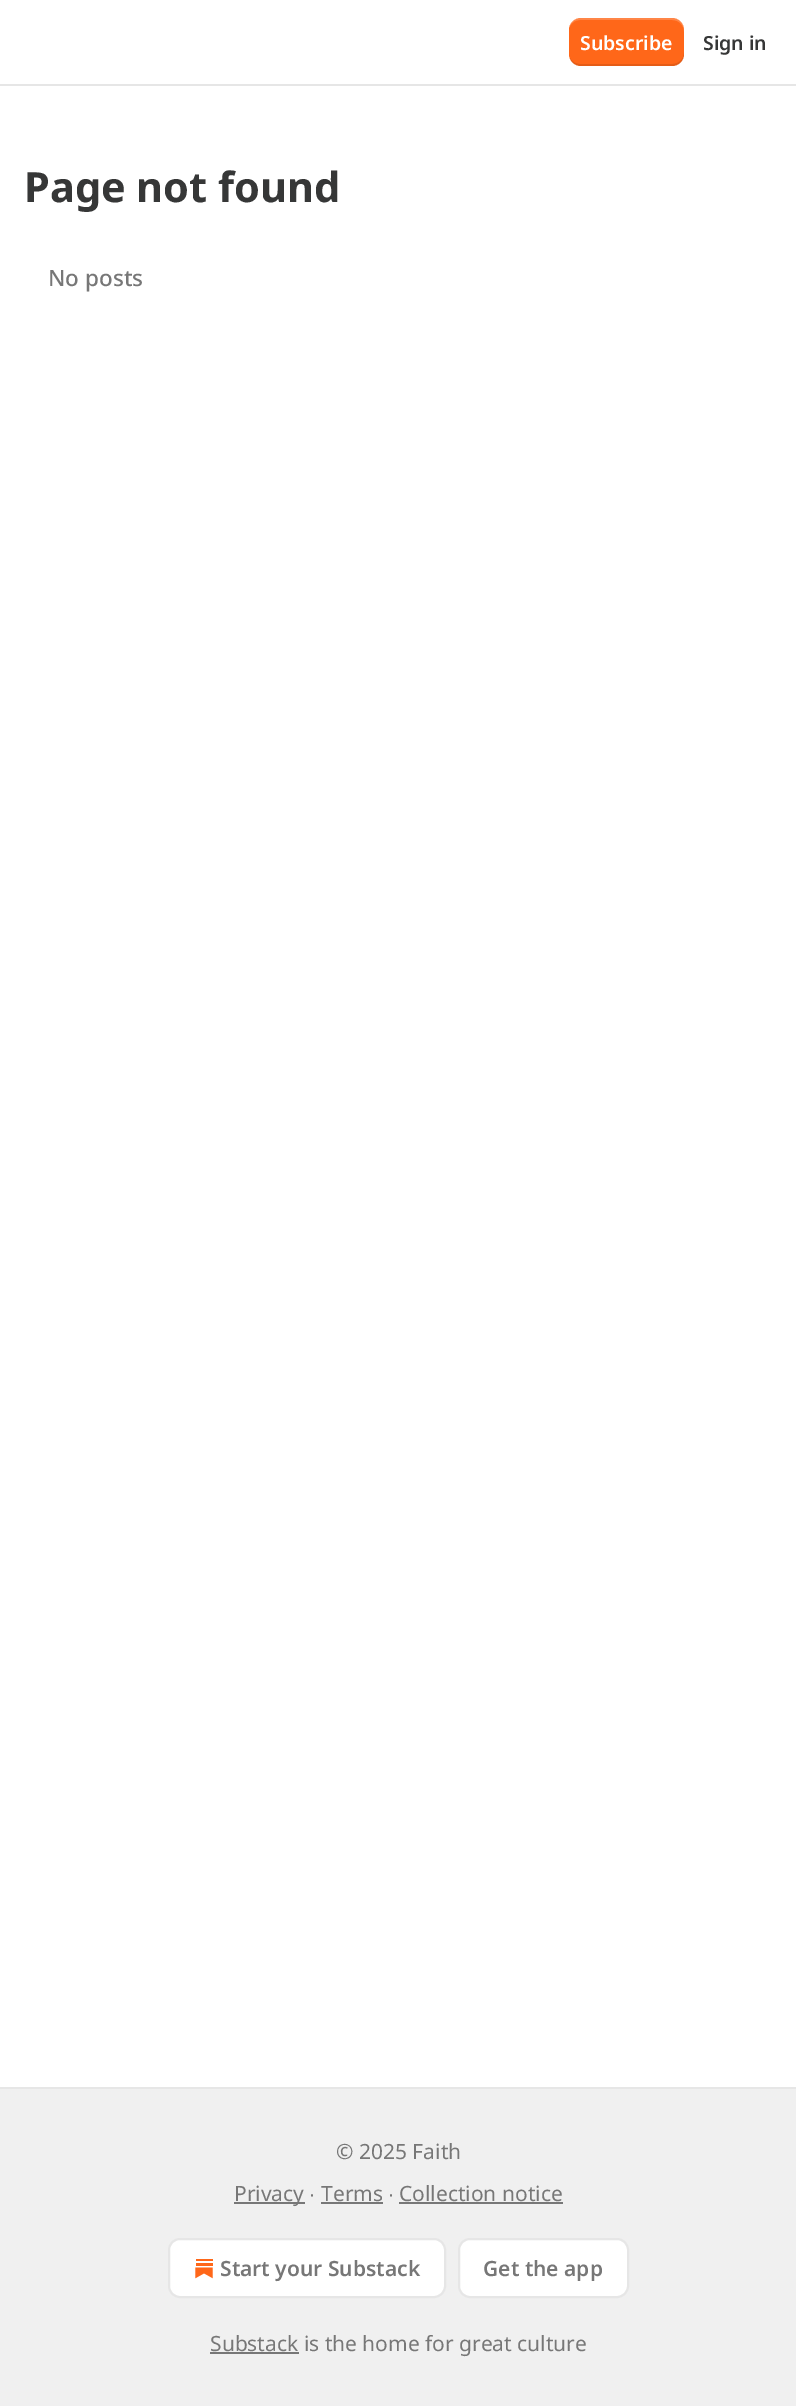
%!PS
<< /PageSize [796 2406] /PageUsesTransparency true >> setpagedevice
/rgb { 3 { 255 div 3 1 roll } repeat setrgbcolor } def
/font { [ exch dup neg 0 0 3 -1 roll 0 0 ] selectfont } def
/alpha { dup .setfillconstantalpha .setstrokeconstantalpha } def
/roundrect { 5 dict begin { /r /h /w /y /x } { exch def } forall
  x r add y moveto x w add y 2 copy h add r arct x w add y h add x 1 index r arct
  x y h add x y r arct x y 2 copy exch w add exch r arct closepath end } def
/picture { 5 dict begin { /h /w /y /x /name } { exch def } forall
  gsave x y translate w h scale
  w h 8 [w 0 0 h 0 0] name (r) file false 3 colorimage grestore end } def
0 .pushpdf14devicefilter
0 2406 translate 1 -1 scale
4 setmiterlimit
255 255 255 rgb
0 0 796 2406 rectfill
230 230 230 rgb
0 84 796 2 rectfill
255 103 25 rgb
569 18 115 48 12 roundrect fill
0.1 alpha
0 0 0 rgb
570 58 moveto 571 63 576 66 581 66 curveto 672 66 lineto 679 66 684 61 684 54 curveto 684 52 lineto 684 59 679 64 672 64 curveto 580 64 lineto 576 64 572 62 570 58 curveto closepath fill
0.2 alpha
255 255 255 rgb
580 20 moveto 672 20 lineto 679 20 684 25 684 32 curveto 684 30 lineto 684 23 679 18 672 18 curveto 581 18 lineto 576 18 571 21 570 26 curveto 572 22 576 20 580 20 curveto closepath fill
1 alpha
[
  [0 2089 796 317 240 240 240]
  [0 2087 796 2 230 230 230]
  [234 2202 71 2 119 119 119]
  [321 2202 62 2 119 119 119]
  [399 2202 164 2 119 119 119]
] { aload pop rgb rectfill } forall
255 255 255 rgb
169 2239 276 58 11 roundrect gsave fill grestore
230 230 230 rgb
2 setlinewidth
stroke
(img/1.rgb) 195 2259 18 20 picture
255 255 255 rgb
459 2239 169 58 11 roundrect gsave fill grestore
230 230 230 rgb
stroke
119 119 119 rgb
210 2352 89 2 rectfill
/NotoSans-SemiBold 19.5 font
255 255 255 rgb
580 50 moveto (Subscribe) show
54 55 55 rgb
703 50 moveto (Sign in) show
/NotoSans-Bold 41.5 font
24 202 moveto (Page not found) show
/NotoSans-Medium 22.5 font
119 119 119 rgb
48 286 moveto (No posts) show
/NotoSans-Regular 21 font
336 2159 moveto (© 2025 Faith) show
234 2201 moveto (Privacy) show
/LiberationSans-Regular 21 font
309 2201 moveto (∙) show
/NotoSans-Regular 21 font
321 2201 moveto (Terms) show
/LiberationSans-Regular 21 font
388 2201 moveto (∙) show
/NotoSans-Regular 21 font
399 2201 moveto (Collection notice) show
/NotoSans-SemiBold 21 font
220 2276 moveto (Start your Substack) show
483 2276 moveto (Get the app) show
/NotoSans-Regular 21 font
210 2351 moveto (Substack is the home for great culture) show
.poppdf14devicefilter showpage
